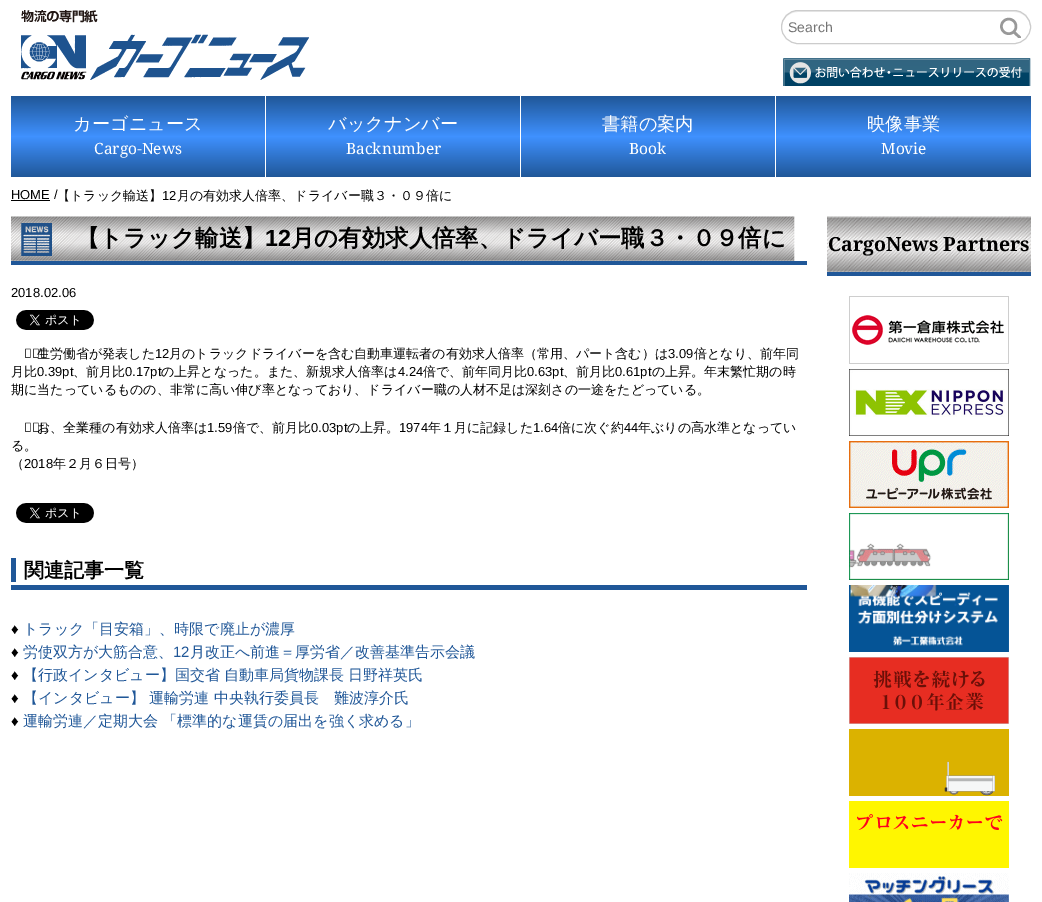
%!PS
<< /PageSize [1042 902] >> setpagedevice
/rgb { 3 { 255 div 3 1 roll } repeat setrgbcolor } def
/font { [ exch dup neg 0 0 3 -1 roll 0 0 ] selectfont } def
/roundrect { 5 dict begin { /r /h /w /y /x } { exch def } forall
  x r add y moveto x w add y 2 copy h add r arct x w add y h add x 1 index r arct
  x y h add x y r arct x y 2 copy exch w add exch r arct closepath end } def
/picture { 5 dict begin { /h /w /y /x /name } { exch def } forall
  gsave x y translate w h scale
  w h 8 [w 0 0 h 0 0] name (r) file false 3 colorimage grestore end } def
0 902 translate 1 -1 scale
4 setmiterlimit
255 255 255 rgb
0 0 1042 902 rectfill
(img/1.rgb) 21 10 288 70 picture
gsave
0 10 1042 76 rectclip
236 236 236 rgb
798 12 moveto 1014 12 lineto 1023 12 1030 19 1030 27 curveto 1031 2 988 11 978 11 curveto 834 11 lineto 824 11 781 2 782 27 curveto 782 19 789 12 798 12 curveto closepath fill
grestore
204 204 204 rgb
781.5 10.5 249 33 16.5 roundrect stroke
(img/2.rgb) 1000 17 21 21 picture
(img/3.rgb) 783 58 248 28 picture
gsave 11 96 moveto 1031 96 lineto 1031 177 lineto 11 177 lineto closepath clip newpath
<< /ShadingType 2 /ColorSpace /DeviceRGB /Coords [521 96 521 177] /Extend [true true] /Function << /FunctionType 3 /Domain [0 1] /Functions [<< /FunctionType 2 /Domain [0 1] /C0 [0.125 0.341 0.596] /C1 [0.247 0.569 1] /N 1 >> << /FunctionType 2 /Domain [0 1] /C0 [0.247 0.569 1] /C1 [0.125 0.341 0.596] /N 1 >>] /Bounds [0.5] /Encode [0 1 0 1] >> >> shfill grestore
[
  [265 96 1 81 255 255 255]
  [520 96 1 81 255 255 255]
  [775 96 1 81 255 255 255]
  [11 200 39 1 0 0 0]
] { aload pop rgb rectfill } forall
(img/4.rgb) 11 216 784 45 picture
32 87 152 rgb
11 261 796 4 rectfill
(img/5.rgb) 16 310 78 20 picture
(img/6.rgb) 16 503 78 20 picture
11 585 796 5 rectfill
11 558 5 24 rectfill
(img/7.rgb) 827 216 204 56 picture
827 272 204 4 rectfill
(img/8.rgb) 849 296 160 68 picture
(img/9.rgb) 849 369 160 67 picture
(img/10.rgb) 849 441 160 67 picture
(img/11.rgb) 849 513 160 67 picture
(img/12.rgb) 849 585 160 67 picture
(img/13.rgb) 849 657 160 67 picture
(img/14.rgb) 849 729 160 67 picture
(img/15.rgb) 849 801 160 67 picture
(img/16.rgb) 849 873 160 29 picture
/LiberationSans-Regular 14 font
117 117 117 rgb
788 32 moveto (Search) show
/WenQuanYiZenHei-Medium 18.25 font
255 255 255 rgb
73 130 moveto (カーゴニュース) show
/NotoSerif-Regular 15.5 font
94 154 moveto (Cargo-News) show
/WenQuanYiZenHei-Medium 18.25 font
328 130 moveto (バックナンバー) show
/NotoSerif-Regular 15.5 font
346 154 moveto (Backnumber) show
/WenQuanYiZenHei-Medium 18.25 font
602 130 moveto (書籍の案内) show
/NotoSerif-Regular 15.5 font
629 154 moveto (Book) show
/WenQuanYiZenHei-Medium 18.25 font
867 130 moveto (映像事業) show
/NotoSerif-Regular 15.5 font
881 154 moveto (Movie) show
/LiberationSans-Regular 13 font
0 0 0 rgb
11 199 moveto (HOME /) show
/WenQuanYiZenHei-Medium 13 font
57 200 moveto (【トラック輸送】) show
/LiberationSans-Regular 13 font
162 200 moveto (12) show
/WenQuanYiZenHei-Medium 13 font
177 200 moveto (月の有効求人倍率、ドライバー職３・０９倍に) show
/WenQuanYiZenHei-Bold 23.4 font
76 246 moveto (【トラック輸送】) show
/LiberationSans-Bold 23.4 font
265 246 moveto (12) show
/WenQuanYiZenHei-Bold 23.4 font
291 246 moveto (月の有効求人倍率、ドライバー職３・０９倍に) show
/LiberationSans-Regular 13 font
11 297 moveto (2018.02.06) show
/NotoSans-Regular 13 font
24 358 moveto (厚) show
/WenQuanYiZenHei-Medium 13 font
37 358 moveto (生労働省が発表した) show
/LiberationSans-Regular 13 font
155 358 moveto (12) show
/WenQuanYiZenHei-Medium 13 font
169 358 moveto (月のトラックドライバーを含む自動車運転者の有効求人倍率（常用、パート含む）は) show
/LiberationSans-Regular 13 font
668 358 moveto (3.09) show
/WenQuanYiZenHei-Medium 13 font
694 358 moveto (倍となり、前年同) show
11 376 moveto (月比) show
/LiberationSans-Regular 13 font
37 376 moveto (0.39pt) show
/WenQuanYiZenHei-Medium 13 font
73 376 moveto (、前月比) show
/LiberationSans-Regular 13 font
125 376 moveto (0.17pt) show
/WenQuanYiZenHei-Medium 13 font
161 376 moveto (の上昇となった。また、新規求人倍率は) show
/LiberationSans-Regular 13 font
398 376 moveto (4.24) show
/WenQuanYiZenHei-Medium 13 font
423 376 moveto (倍で、前年同月比) show
/LiberationSans-Regular 13 font
527 376 moveto (0.63pt) show
/WenQuanYiZenHei-Medium 13 font
563 376 moveto (、前月比) show
/LiberationSans-Regular 13 font
615 376 moveto (0.61pt) show
/WenQuanYiZenHei-Medium 13 font
652 376 moveto (の上昇。年末繁忙期の時) show
11 394 moveto (期に当たっているものの、非常に高い伸び率となっており、ドライバー職の人材不足は深刻さの一途をたどっている。) show
/NotoSans-Regular 13 font
24 432 moveto (な) show
/WenQuanYiZenHei-Medium 13 font
37 432 moveto (お、全業種の有効求人倍率は) show
/LiberationSans-Regular 13 font
207 432 moveto (1.59) show
/WenQuanYiZenHei-Medium 13 font
233 432 moveto (倍で、前月比) show
/LiberationSans-Regular 13 font
311 432 moveto (0.03pt) show
/WenQuanYiZenHei-Medium 13 font
347 432 moveto (の上昇。) show
/LiberationSans-Regular 13 font
399 432 moveto (1974) show
/WenQuanYiZenHei-Medium 13 font
428 432 moveto (年１月に記録した) show
/LiberationSans-Regular 13 font
533 432 moveto (1.64) show
/WenQuanYiZenHei-Medium 13 font
558 432 moveto (倍に次ぐ約) show
/LiberationSans-Regular 13 font
624 432 moveto (44) show
/WenQuanYiZenHei-Medium 13 font
[
  [(年ぶりの高水準となってい) 638 432]
  [(る。) 11 450]
  [(（) 11 468]
] { aload pop moveto show } forall
/LiberationSans-Regular 13 font
24 468 moveto (2018) show
/WenQuanYiZenHei-Medium 13 font
53 468 moveto (年２月６日号）) show
/WenQuanYiZenHei-Bold 20 font
24 577 moveto (関連記事一覧) show
/LiberationSans-Regular 15 font
11 634 moveto (♦) show
/WenQuanYiZenHei-Medium 15 font
32 87 152 rgb
23 634 moveto (トラック「目安箱」、時限で廃止が濃厚) show
/LiberationSans-Regular 15 font
0 0 0 rgb
11 657 moveto (♦) show
/WenQuanYiZenHei-Medium 15 font
32 87 152 rgb
23 657 moveto (労使双方が大筋合意、) show
/LiberationSans-Regular 15 font
173 657 moveto (12) show
/WenQuanYiZenHei-Medium 15 font
190 657 moveto (月改正へ前進＝厚労省／改善基準告示会議) show
/LiberationSans-Regular 15 font
0 0 0 rgb
11 680 moveto (♦) show
/WenQuanYiZenHei-Medium 15 font
32 87 152 rgb
23 680 moveto (【行政インタビュー】国交省 自動車局貨物課長) show
348 680 moveto (日野祥英氏) show
/LiberationSans-Regular 15 font
0 0 0 rgb
11 703 moveto (♦) show
/WenQuanYiZenHei-Medium 15 font
32 87 152 rgb
23 703 moveto (【インタビュー】 運輸労連 中央執行委員長　難波淳介氏) show
/LiberationSans-Regular 15 font
0 0 0 rgb
11 726 moveto (♦) show
/WenQuanYiZenHei-Medium 15 font
32 87 152 rgb
23 726 moveto (運輸労連／定期大会 「標準的な運賃の届出を強く求める」) show
/NotoSerif-Bold 19.5 font
0 0 0 rgb
828 251 moveto (CargoNews Partners) show
showpage
